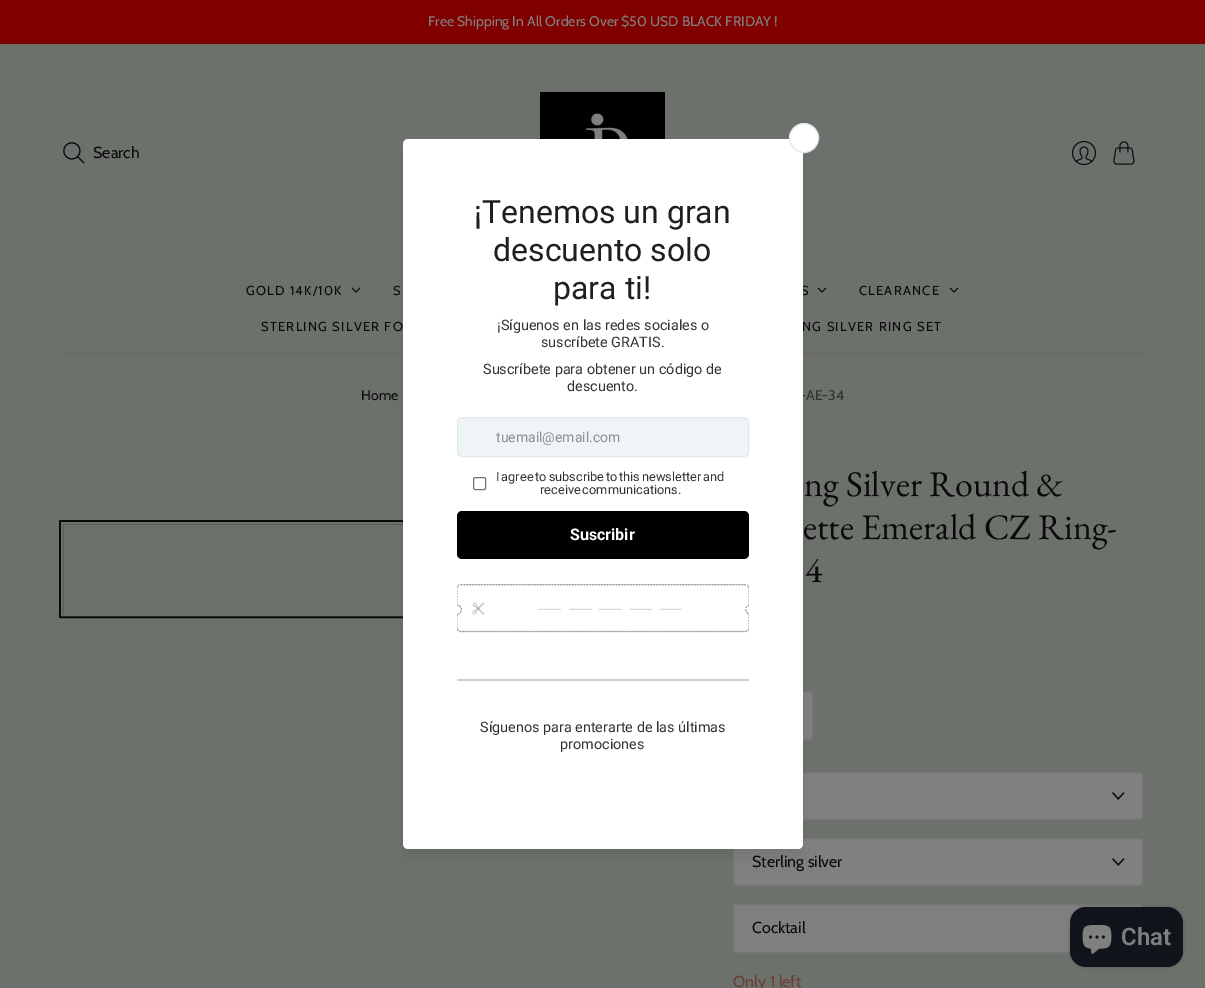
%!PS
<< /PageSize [1205 988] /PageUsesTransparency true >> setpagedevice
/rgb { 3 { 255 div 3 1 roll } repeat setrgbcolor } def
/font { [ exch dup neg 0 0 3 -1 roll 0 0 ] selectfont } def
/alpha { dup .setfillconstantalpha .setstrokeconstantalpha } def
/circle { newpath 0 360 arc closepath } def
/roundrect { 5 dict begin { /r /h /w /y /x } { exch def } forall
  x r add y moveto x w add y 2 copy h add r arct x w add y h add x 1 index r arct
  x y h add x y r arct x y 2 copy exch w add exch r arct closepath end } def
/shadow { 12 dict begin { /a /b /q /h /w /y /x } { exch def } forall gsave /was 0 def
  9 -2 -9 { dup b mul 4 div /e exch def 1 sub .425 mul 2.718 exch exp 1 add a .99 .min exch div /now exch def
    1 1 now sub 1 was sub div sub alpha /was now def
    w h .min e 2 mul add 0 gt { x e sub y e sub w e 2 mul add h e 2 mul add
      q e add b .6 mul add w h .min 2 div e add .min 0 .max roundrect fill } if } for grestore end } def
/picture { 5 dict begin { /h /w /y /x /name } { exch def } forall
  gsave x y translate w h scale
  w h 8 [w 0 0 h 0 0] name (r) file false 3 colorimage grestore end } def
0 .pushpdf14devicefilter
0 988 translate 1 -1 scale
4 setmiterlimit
109 113 108 rgb
0 0 1205 988 rectfill
128 0 0 rgb
0 0 1205 44 rectfill
(img/1.rgb) 63 142 22 22 picture
(img/2.rgb) 1071 140 26 26 picture
(img/3.rgb) 1113 141 22 24 picture
105 100 100 rgb
63 353 1080 1 rectfill
(img/4.rgb) 540 92 125 47 picture
10 10 10 rgb
352 288 moveto 356 292 lineto 360 288 lineto stroke
818 288 moveto 822 292 lineto 826 288 lineto stroke
950 288 moveto 954 292 lineto 958 288 lineto stroke
4 setlinewidth
61 522 582 94 rectstroke
109 113 108 rgb
2 setlinewidth
62 523 580 92 rectstroke
128 128 128 rgb
733.5 691.5 79 48 2.5 roundrect gsave fill grestore
117 117 117 rgb
1 setlinewidth
stroke
128 128 128 rgb
733.5 772.5 409 47 2.5 roundrect gsave fill grestore
117 117 117 rgb
stroke
128 128 128 rgb
733.5 838.5 409 47 2.5 roundrect gsave fill grestore
117 117 117 rgb
stroke
0 0 0 rgb
406 152 394 704 2 7.5 0.1 shadow
gsave
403 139 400 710 rectclip
406 142 394 704 2 10 0.12 shadow
grestore
(img/6.rgb) 1112 792 13 8 picture
(img/6.rgb) 1112 858 13 8 picture
128 128 128 rgb
733.5 904.5 409 48 2.5 roundrect gsave fill grestore
117 117 117 rgb
stroke
0 0 0 rgb
1070 907 113 60 16 2.5 0.15 shadow
16 21 27 rgb
1070 907 113 60 16 roundrect fill
(img/7.rgb) 1082 925 30 29 picture
/Cabin-Regular 14 font
128 128 128 rgb
428 26 moveto (Free Shipping In All Orders Over $50 USD BLACK FRIDAY !) show
/Cabin-Regular 16 font
10 10 10 rgb
93 158 moveto (Search) show
/Cabin-Regular 13 font
246 295 moveto 1.25 0 (GOLD 14K/10K) ashow
393 295 moveto 1.25 0 (S) ashow
801 295 moveto 1.25 0 (S) ashow
859 295 moveto 1.25 0 (CLEARANCE) ashow
261 331 moveto 1.25 0 (STERLING SILVER FO) ashow
802 331 moveto 1.25 0 (NG SILVER RING SET) ashow
/Cabin-Regular 14 font
361 400 moveto (Home) show
49 51 49 rgb
800 400 moveto (-AE-34) show
255 255 255 rgb
403 139 400 710 5 roundrect fill
804 138 14.5 circle gsave fill grestore
226 232 240 rgb
stroke
205 205 205 rgb
457 679 292 2 rectfill
(img/5.rgb) 457 584 292 49 picture
239 244 247 rgb
457.5 417.5 291 39 4.5 roundrect gsave fill grestore
226 232 240 rgb
stroke
/Roboto-Regular 14 font
140 142 143 rgb
496 442 moveto (tuemail@email.com) show
/Roboto-Regular 14.4 font
49 51 49 rgb
560 749 moveto (promociones) show
480 732 moveto (Síguenos para enterarte de las últimas) show
0 0 0 rgb
457 511 292 48 5 roundrect fill
/Roboto-Bold 16 font
255 255 255 rgb
570 540 moveto (Suscribir) show
/Roboto-Regular 12.75 font
49 51 49 rgb
540 494 moveto -1.25 0 32 (receive communications.) widthshow
496 481 moveto -1.25 0 32 (I agree to subscribe to this newsletter and) widthshow
118 118 118 rgb
473.5 477.5 12 12 1.5 roundrect stroke
/Roboto-Regular 14.4 font
49 51 49 rgb
[
  [(descuento.) 567 391]
  [(Suscríbete para obtener un código de) 483 374]
  [(suscríbete GRATIS.) 541 347]
  [(¡Síguenos en las redes sociales o) 497 330]
] { aload pop moveto show } forall
/Roboto-Regular 32 font
31 31 31 rgb
[
  [(para ti!) 553 299]
  [(descuento solo) 493 261]
  [(¡Tenemos un gran) 474 223]
] { aload pop moveto show } forall
/EBGaramond-Regular 36 font
10 10 10 rgb
[
  [(ng Silver Round &) 804 496]
  [(ette Emerald CZ Ring-) 803 539]
  [(4) 805 582]
] { aload pop moveto show } forall
/Cabin-Regular 16 font
752 867 moveto (Sterling silver) show
752 933 moveto (Cocktail) show
108 61 51 rgb
733 987 moveto (Only 1 left) show
/Roboto-SemiBold 24 font
128 128 128 rgb
1121 945 moveto (Chat) show
.poppdf14devicefilter showpage
